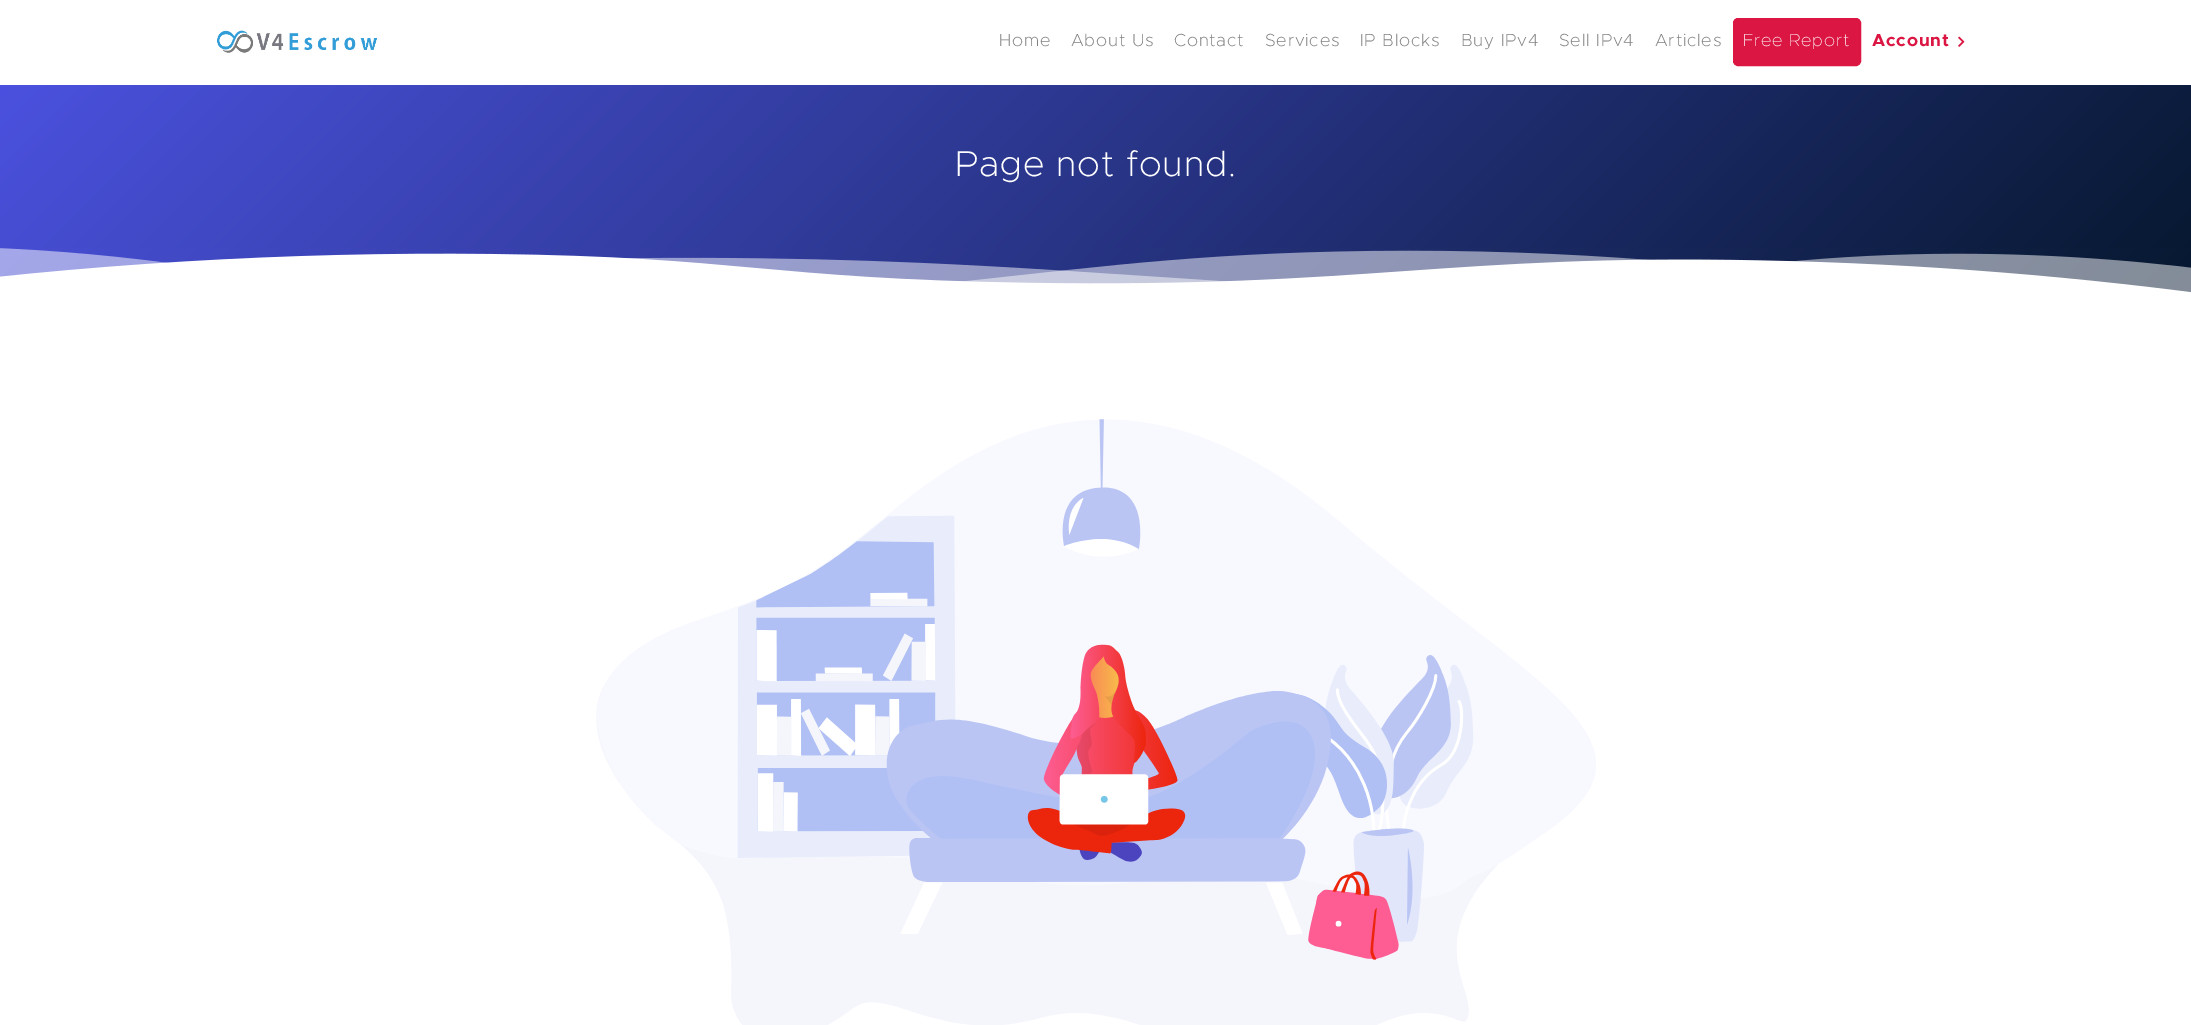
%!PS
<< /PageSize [2191 1025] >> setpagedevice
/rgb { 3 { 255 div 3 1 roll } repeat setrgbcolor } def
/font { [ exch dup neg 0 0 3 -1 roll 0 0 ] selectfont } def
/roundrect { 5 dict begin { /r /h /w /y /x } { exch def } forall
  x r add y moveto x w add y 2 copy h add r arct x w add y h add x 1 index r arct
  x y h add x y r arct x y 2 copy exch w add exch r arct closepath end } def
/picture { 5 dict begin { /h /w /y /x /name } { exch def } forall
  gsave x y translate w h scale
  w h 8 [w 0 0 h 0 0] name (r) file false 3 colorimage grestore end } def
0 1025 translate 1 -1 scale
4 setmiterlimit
255 255 255 rgb
0 0 2191 1025 rectfill
(img/1.rgb) 217 30 161 23 picture
219 22 67 rgb
1733.5 18.5 127 47 4.5 roundrect gsave fill grestore
stroke
(img/2.rgb) 1958 36 7 11 picture
gsave 0 85 moveto 2191 85 lineto 2191 293 lineto 0 293 lineto closepath clip newpath
<< /ShadingType 2 /ColorSpace /DeviceRGB /Coords [494 -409 1697 793] /Extend [true true] /Function << /FunctionType 2 /Domain [0 1] /C0 [0.294 0.318 0.871] /C1 [0.024 0.094 0.184] /N 1 >> >> shfill grestore
(img/3.rgb) 0 248 2191 51 picture
(img/4.rgb) 596 419 1000 606 picture
/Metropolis-ExtraLight 17.5 font
128 128 128 rgb
999 46 moveto 0.8 0 (Home) ashow
1071 46 moveto 0.8 0 (About Us) ashow
1174 46 moveto 0.8 0 (Contact) ashow
1265 46 moveto 0.8 0 (Services) ashow
1360 46 moveto 0.8 0 (IP Blocks) ashow
1461 46 moveto 0.8 0 (Buy IPv4) ashow
1559 46 moveto 0.8 0 (Sell IPv4) ashow
1655 46 moveto 0.8 0 (Articles) ashow
/Metropolis-Thin 17.5 font
255 255 255 rgb
1743 46 moveto 0.8 0 (Free Report) ashow
/Metropolis-Bold 17.5 font
219 22 67 rgb
1872 46 moveto 0.8 0 (Account) ashow
/Metropolis-ExtraLight 36 font
255 255 255 rgb
955 176 moveto 0.8 0 (Page not found.) ashow
showpage
